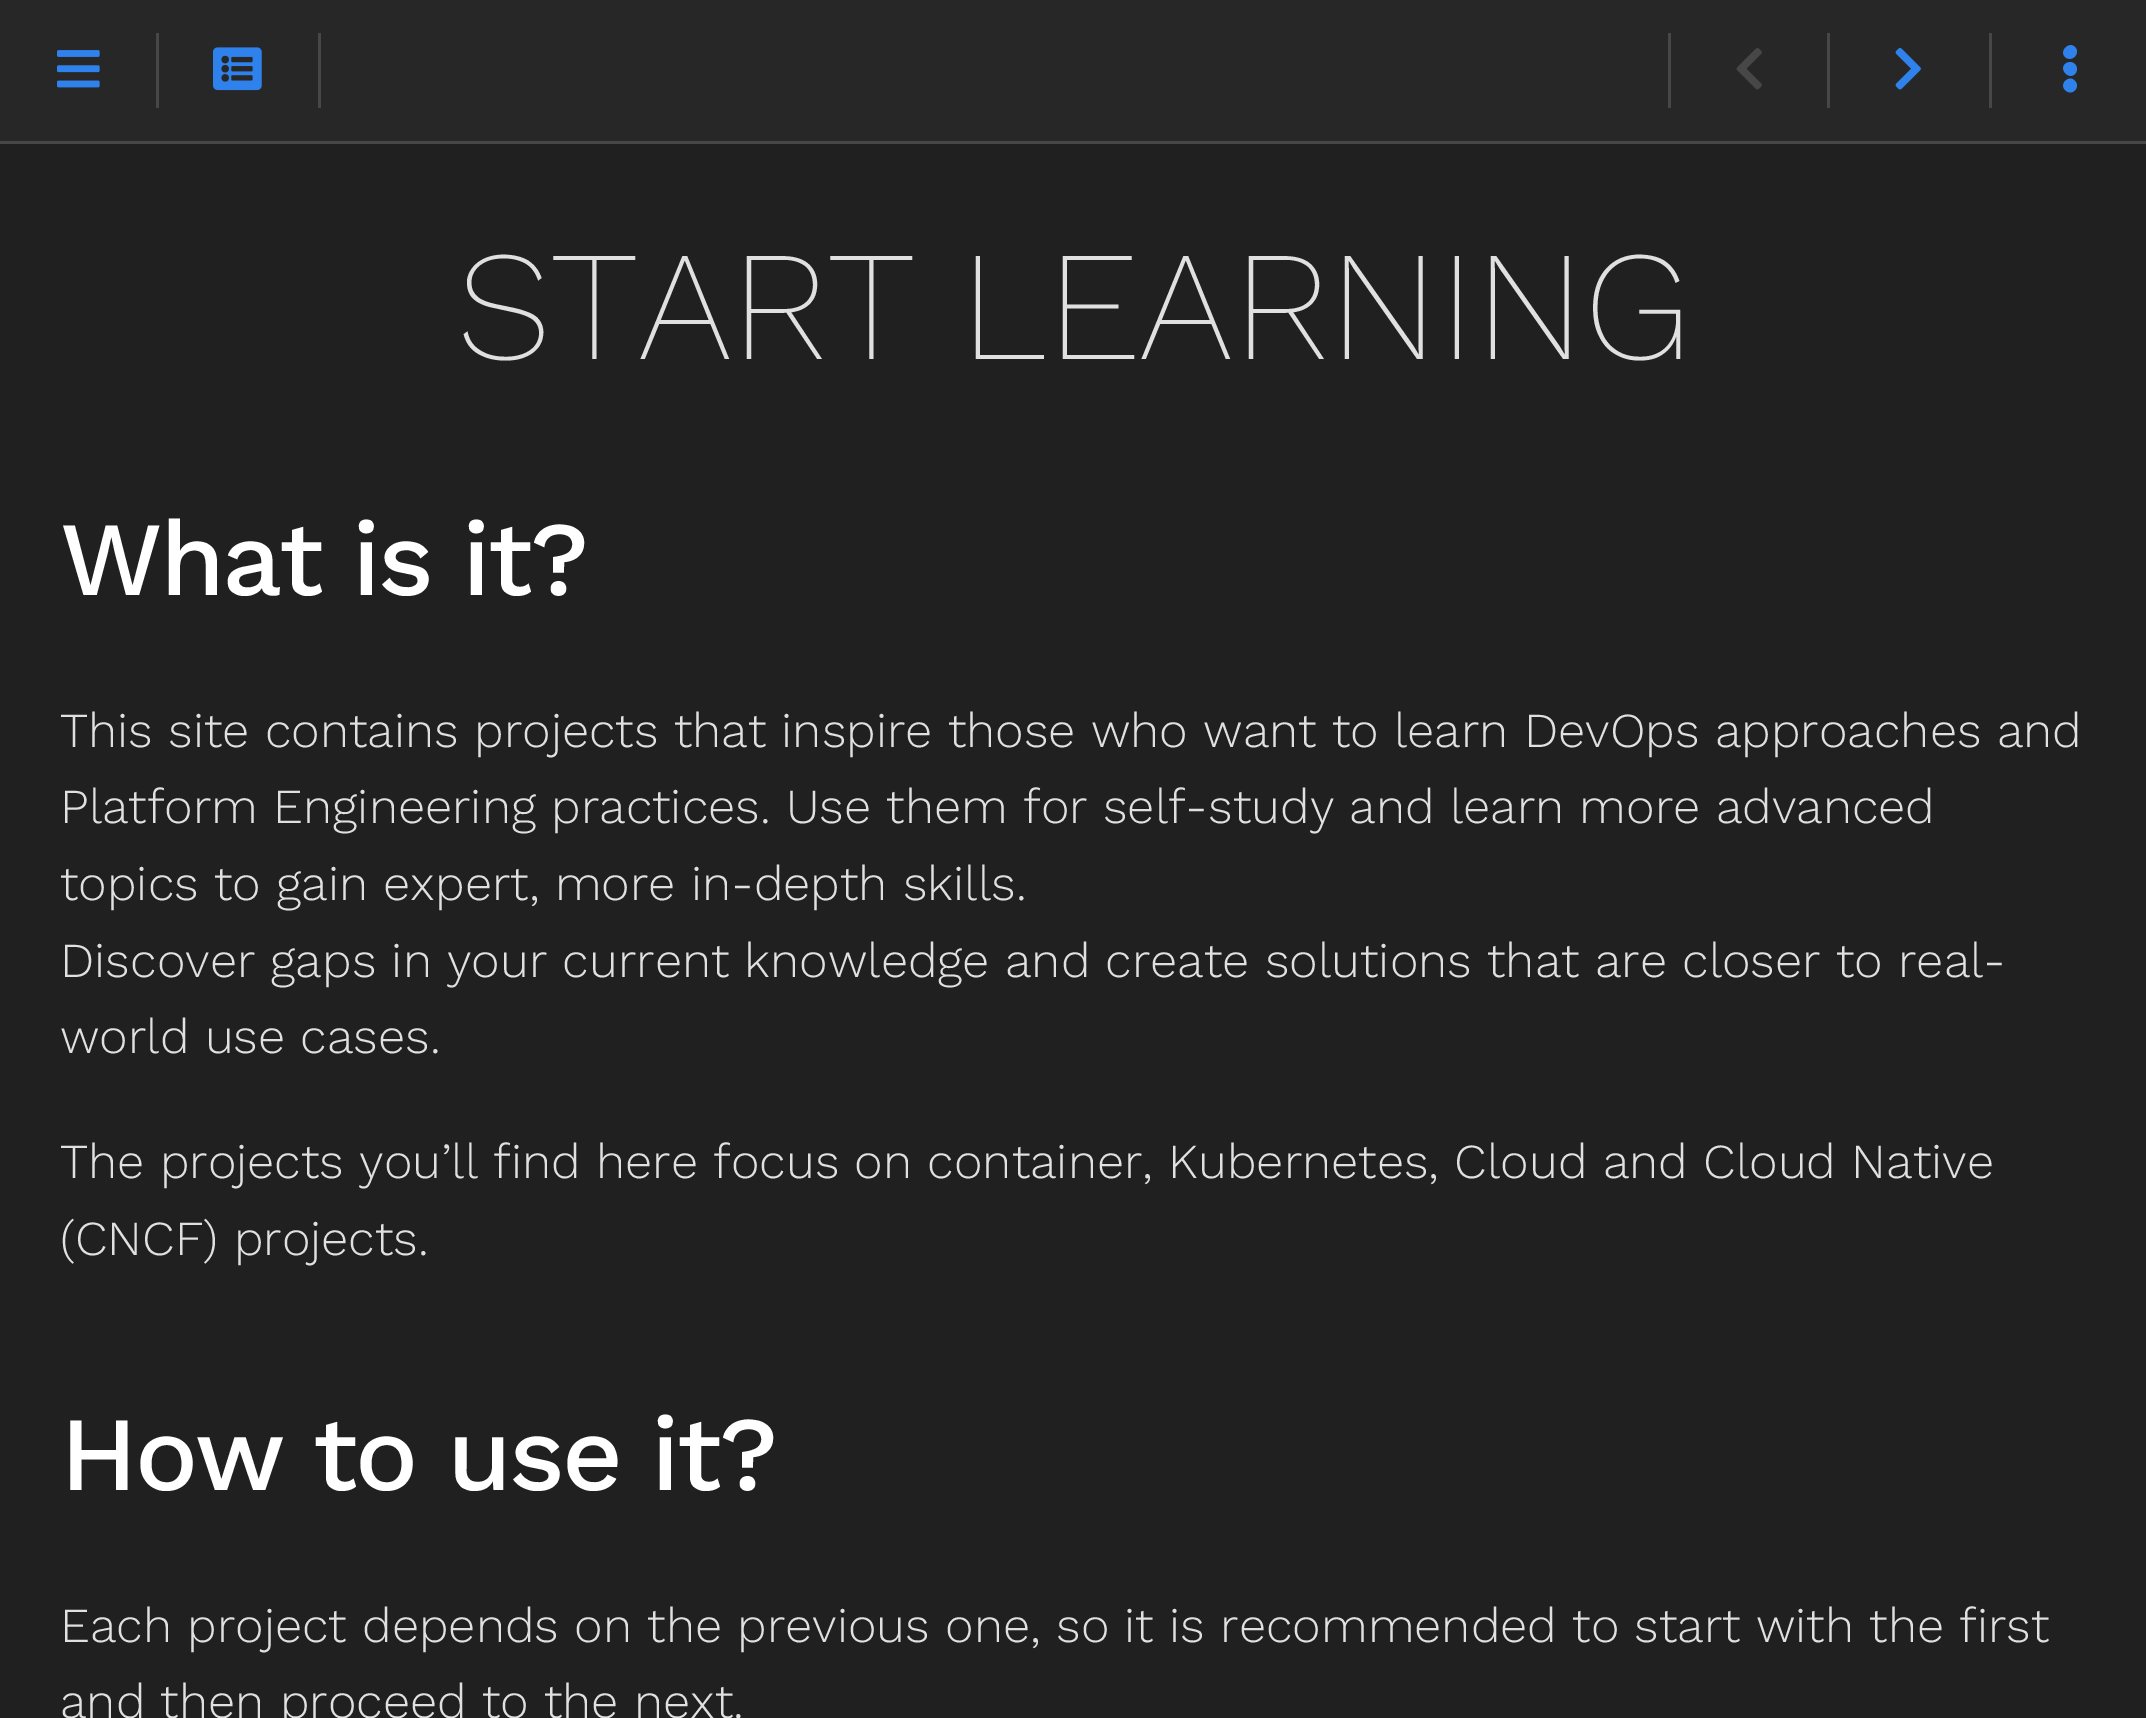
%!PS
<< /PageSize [2146 1718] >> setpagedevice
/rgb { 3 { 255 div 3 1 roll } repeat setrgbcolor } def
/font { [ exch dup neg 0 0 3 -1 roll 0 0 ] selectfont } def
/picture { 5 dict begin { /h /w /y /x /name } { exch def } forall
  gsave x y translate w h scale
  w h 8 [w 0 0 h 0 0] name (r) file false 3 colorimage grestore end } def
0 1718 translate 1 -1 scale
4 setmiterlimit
32 32 32 rgb
0 0 2146 1718 rectfill
[
  [0 141 2146 3 71 71 71]
  [0 0 2146 141 39 39 39]
  [156 33 3 75 71 71 71]
] { aload pop rgb rectfill } forall
(img/1.rgb) 57 50 43 38 picture
318 33 3 75 rectfill
(img/2.rgb) 213 47 49 44 picture
1668 33 3 75 rectfill
(img/3.rgb) 1736 48 26 42 picture
1827 33 3 75 rectfill
(img/4.rgb) 1895 48 26 42 picture
1989 33 3 75 rectfill
47 129 235 rgb
2065 64 moveto 2072 58 2081 67 2075 74 curveto 2069 80 2059 70 2065 64 curveto closepath 2065 57 moveto 2059 51 2069 41 2075 47 curveto 2081 53 2072 63 2065 57 curveto closepath 2065 90 moveto 2059 84 2069 74 2075 81 curveto 2081 87 2072 97 2065 90 curveto closepath fill
/WorkSans-ExtraLight 156 font
224 224 224 rgb
457 359 moveto (START LEARNING) show
/WorkSans-Medium 105.5 font
255 255 255 rgb
60 595 moveto -3 0 (What is it?) ashow
/WorkSans-Light 48.75 font
224 224 224 rgb
[
  [(This site contains projects that inspire those who want to learn DevOps approaches and) 60 747]
  [(Platform Engineering practices. Use them for self-study and learn more advanced) 60 823]
  [(topics to gain expert, more in-depth skills.) 60 900]
  [(Discover gaps in your current knowledge and create solutions that are closer to real-) 60 977]
  [(world use cases.) 60 1053]
  [(The projects you’ll find here focus on container, Kubernetes, Cloud and Cloud Native) 60 1178]
  [(\(CNCF\) projects.) 60 1255]
] { aload pop moveto show } forall
/WorkSans-Medium 105.5 font
255 255 255 rgb
60 1490 moveto -3 0 (How to use it?) ashow
/WorkSans-Light 48.75 font
224 224 224 rgb
60 1642 moveto (Each project depends on the previous one, so it is recommended to start with the first) show
60 1718 moveto (and then proceed to the next.) show
showpage
